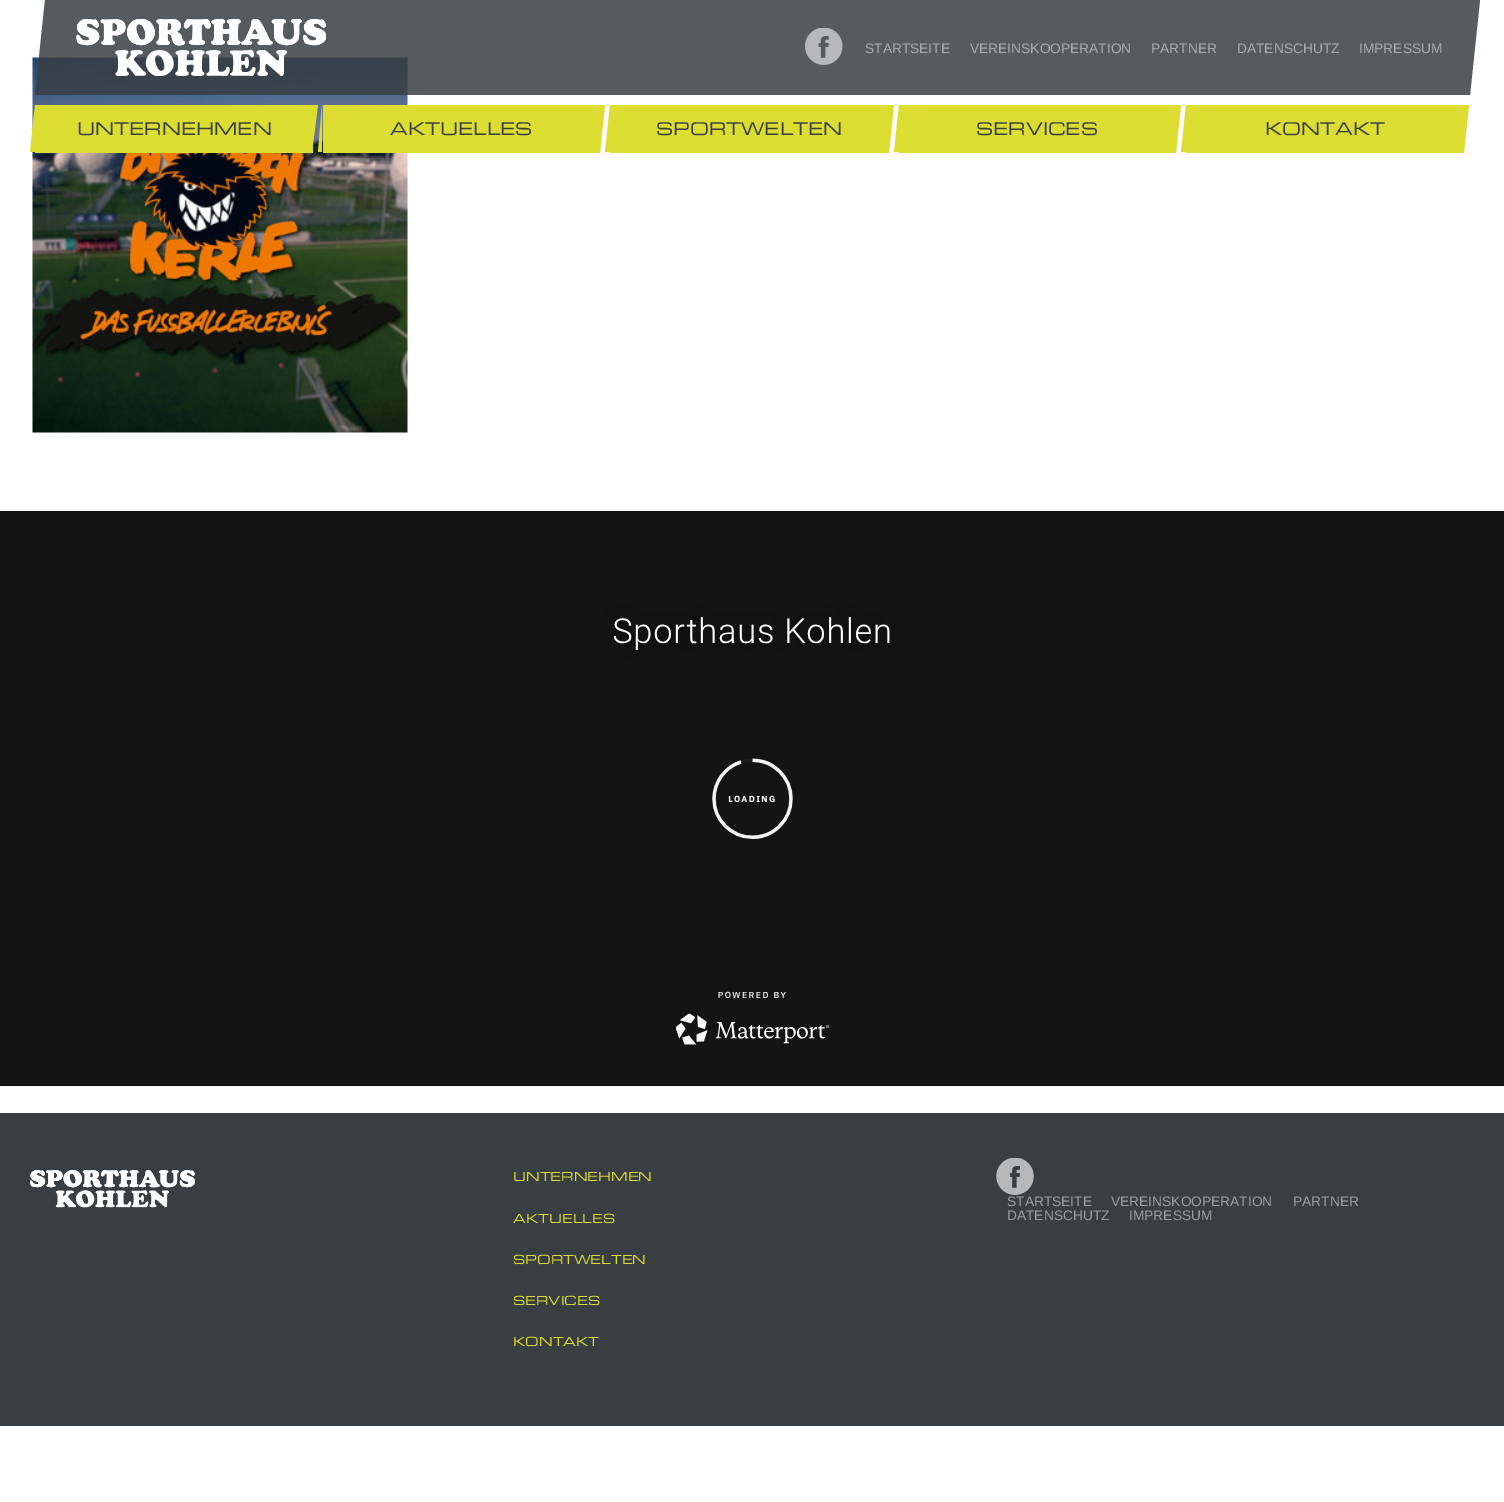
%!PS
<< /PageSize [1504 1502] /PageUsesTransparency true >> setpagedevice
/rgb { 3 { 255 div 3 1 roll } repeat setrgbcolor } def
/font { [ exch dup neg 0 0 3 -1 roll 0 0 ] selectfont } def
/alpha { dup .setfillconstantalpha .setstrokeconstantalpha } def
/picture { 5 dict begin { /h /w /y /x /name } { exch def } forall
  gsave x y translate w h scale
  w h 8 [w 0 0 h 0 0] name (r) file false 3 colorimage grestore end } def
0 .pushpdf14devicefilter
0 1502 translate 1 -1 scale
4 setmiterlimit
255 255 255 rgb
0 0 1504 1502 rectfill
(img/3.rgb) 32 57 376 376 picture
0.85 alpha
56 62 66 rgb
45 0 1425 95 rectfill
45 0 moveto 45 95 lineto 35 95 lineto closepath fill
1 alpha
(img/1.rgb) 76 19 250 57 picture
(img/2.rgb) 805 28 38 37 picture
86 91 94 rgb
1470 95 moveto 1470 0 lineto 1480 0 lineto closepath fill
219 221 49 rgb
35 105 278 48 rectfill
35 105 moveto 35 152 lineto 30 152 lineto closepath fill
312 152 moveto 312 105 lineto 318 105 lineto closepath fill
323 105 277 48 rectfill
322 105 moveto 322 152 lineto 318 152 lineto closepath fill
600 152 moveto 600 105 lineto 605 105 lineto closepath fill
610 105 279 48 rectfill
610 105 moveto 610 152 lineto 605 152 lineto closepath fill
889 152 moveto 889 105 lineto 894 105 lineto closepath fill
899 105 277 48 rectfill
899 105 moveto 899 152 lineto 894 152 lineto closepath fill
1176 152 moveto 1176 105 lineto 1181 105 lineto closepath fill
1186 105 278 48 rectfill
1186 105 moveto 1186 152 lineto 1181 152 lineto closepath fill
1464 152 moveto 1464 105 lineto 1469 105 lineto closepath fill
(img/4.rgb) 0 511 1504 576 picture
56 62 66 rgb
0 1113 1504 313 rectfill
(img/5.rgb) 30 1170 165 38 picture
(img/6.rgb) 996 1158 38 37 picture
/LiberationSans-Regular 13.75 font
170 173 175 rgb
[
  [(STARTSEITE) 865 53]
  [(VEREINSKOOPERATION) 970 53]
  [(PARTNER) 1151 53]
  [(DATENSCHUTZ) 1237 53]
  [(IMPRESSUM) 1359 53]
] { aload pop moveto show } forall
/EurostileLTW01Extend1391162-Regular 17.5 font
56 62 66 rgb
[
  [(UNTERNEHMEN) 77 135]
  [(AKTUELLES) 390 135]
  [(SPORTWELTEN) 656 135]
  [(SERVICES) 976 135]
  [(KONTAKT) 1265 135]
] { aload pop moveto show } forall
/EurostileLTW01Extend1391162-Regular 12.5 font
219 221 49 rgb
[
  [(UNTERNEHMEN) 513 1181]
  [(AKTUELLES) 513 1223]
  [(SPORTWELTEN) 513 1264]
  [(SERVICES) 513 1305]
  [(KONTAKT) 513 1346]
] { aload pop moveto show } forall
/LiberationSans-Regular 13.75 font
156 159 161 rgb
[
  [(STARTSEITE) 1007 1206]
  [(VEREINSKOOPERATION) 1111 1206]
  [(PARTNER) 1293 1206]
  [(DATENSCHUTZ) 1007 1220]
  [(IMPRESSUM) 1129 1220]
] { aload pop moveto show } forall
.poppdf14devicefilter showpage
